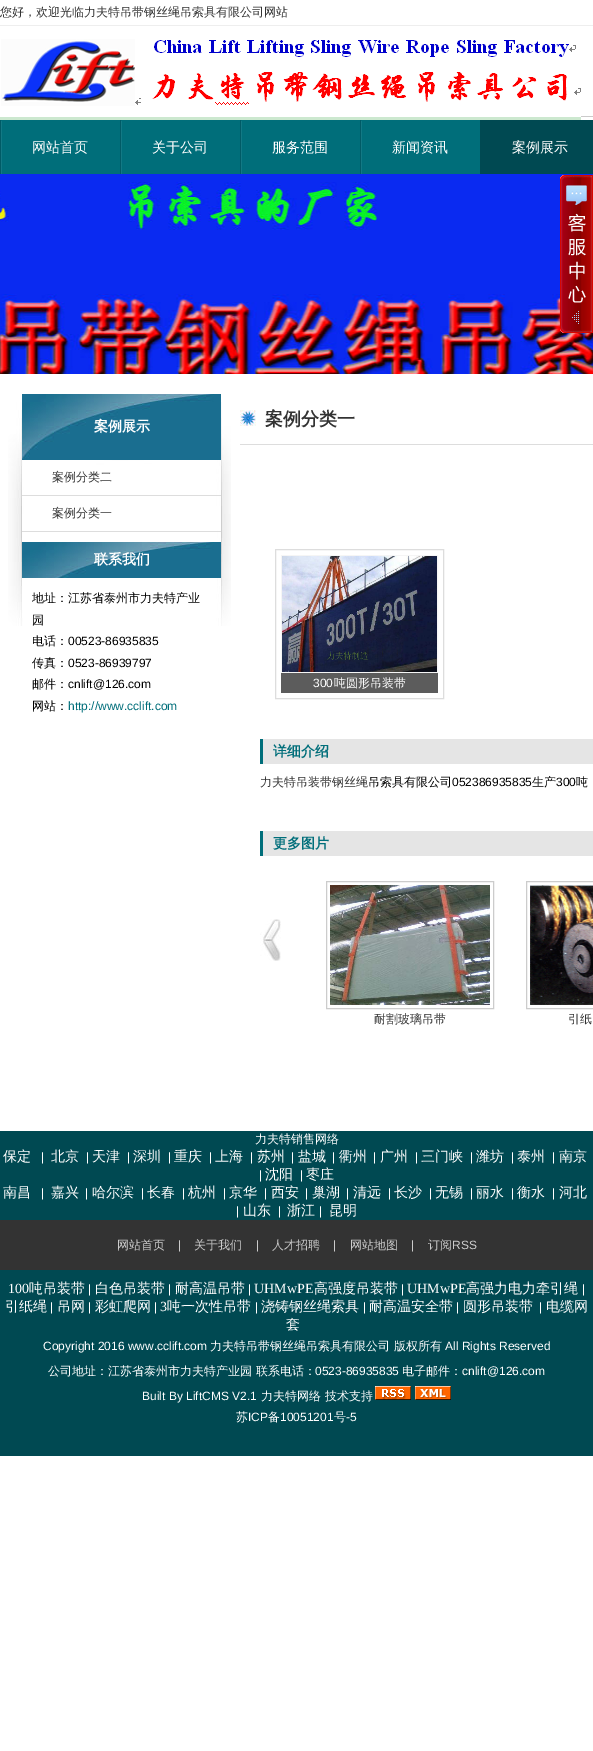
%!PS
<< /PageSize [593 1751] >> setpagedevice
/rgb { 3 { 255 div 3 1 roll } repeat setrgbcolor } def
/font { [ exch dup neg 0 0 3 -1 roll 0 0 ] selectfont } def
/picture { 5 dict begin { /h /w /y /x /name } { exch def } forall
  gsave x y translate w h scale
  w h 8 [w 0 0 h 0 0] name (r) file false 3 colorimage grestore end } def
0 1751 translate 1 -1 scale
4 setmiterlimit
255 255 255 rgb
0 0 593 1751 rectfill
238 238 238 rgb
0 25 593 1 rectfill
203 202 202 rgb
581 116 12 1 rectfill
(img/1.rgb) 0 39 581 81 picture
0 110 122 rgb
2 120 478 54 rectfill
(img/2.rgb) 0 120 2 54 picture
(img/2.rgb) 120 120 2 54 picture
(img/2.rgb) 240 120 2 54 picture
(img/2.rgb) 360 120 2 54 picture
0 73 82 rgb
480 120 113 54 rectfill
(img/4.rgb) 0 174 593 200 picture
(img/3.rgb) 560 175 33 158 picture
(img/5.rgb) 8 402 223 224 picture
(img/6.rgb) 22 394 199 66 picture
221 221 221 rgb
22 495 199 1 rectfill
22 531 199 1 rectfill
(img/7.rgb) 22 542 199 36 picture
(img/8.rgb) 240 410 16 16 picture
240 444 353 1 rectfill
275.5 549.5 168 149 rectstroke
245 245 245 rgb
281.5 555.5 156 117 rectstroke
(img/9.rgb) 282 556 155 116 picture
[
  [281 673 157 20 92 92 92]
  [263 739 330 25 229 229 229]
  [260 739 3 25 0 110 122]
  [263 831 330 25 229 229 229]
  [260 831 3 25 0 110 122]
] { aload pop rgb rectfill } forall
(img/10.rgb) 260 919 21 42 picture
204 204 204 rgb
326.5 881.5 167 127 rectstroke
(img/11.rgb) 330 885 160 120 picture
526.5 881.5 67 127 rectstroke
(img/12.rgb) 530 885 63 120 picture
0 73 82 rgb
0 1131 593 325 rectfill
51 51 51 rgb
0 1220 593 50 rectfill
(img/13.rgb) 375 1386 36 14 picture
(img/14.rgb) 415 1386 36 14 picture
/WenQuanYiZenHei-Medium 12 font
0 16 moveto (您好，欢迎光临力夫特吊带钢丝绳吊索具有限公司网站) show
/WenQuanYiZenHei-Medium 14 font
255 255 255 rgb
[
  [(网站首页) 32 152]
  [(关于公司) 152 152]
  [(服务范围) 272 152]
  [(新闻资讯) 392 152]
  [(案例展示) 512 152]
] { aload pop moveto show } forall
/WenQuanYiZenHei-Bold 14 font
94 431 moveto (案例展示) show
/WenQuanYiZenHei-Medium 12 font
51 51 51 rgb
52 481 moveto (案例分类二) show
52 517 moveto (案例分类一) show
/WenQuanYiZenHei-Bold 14 font
255 255 255 rgb
94 564 moveto (联系我们) show
/WenQuanYiZenHei-Medium 12 font
0 0 0 rgb
[
  [(地址：江苏省泰州市力夫特产业) 32 602]
  [(园) 32 624]
  [(电话：) 32 645]
] { aload pop moveto show } forall
/LiberationSans-Regular 12 font
68 645 moveto (00523-86935835) show
/WenQuanYiZenHei-Medium 12 font
32 667 moveto (传真：) show
/LiberationSans-Regular 12 font
68 667 moveto (0523-86939797) show
/WenQuanYiZenHei-Medium 12 font
32 688 moveto (邮件：) show
/LiberationSans-Regular 12 font
68 688 moveto (cnlift@126.com) show
/WenQuanYiZenHei-Medium 12 font
32 710 moveto (网站：) show
/LiberationSans-Regular 12 font
0 110 122 rgb
68 710 moveto (http://www.cclift.com) show
/WenQuanYiZenHei-Bold 18 font
51 51 51 rgb
265 425 moveto (案例分类一) show
/LiberationSans-Regular 12 font
255 255 255 rgb
313 687 moveto (300) show
/WenQuanYiZenHei-Medium 12 font
334 687 moveto (吨圆形吊装带) show
/WenQuanYiZenHei-Bold 14 font
0 110 122 rgb
273 756 moveto (详细介绍) show
/WenQuanYiZenHei-Medium 12 font
51 51 51 rgb
260 786 moveto (力夫特吊装带钢丝绳) show
0 0 0 rgb
368 786 moveto (吊索具有限公司) show
/LiberationSans-Regular 12 font
452 786 moveto (052386935835) show
/WenQuanYiZenHei-Medium 12 font
532 786 moveto (生产) show
/LiberationSans-Regular 12 font
556 786 moveto (300) show
/WenQuanYiZenHei-Medium 12 font
576 786 moveto (吨) show
/WenQuanYiZenHei-Bold 14 font
0 110 122 rgb
273 848 moveto (更多图片) show
/WenQuanYiZenHei-Medium 12 font
51 51 51 rgb
374 1023 moveto (耐割玻璃吊带) show
568 1023 moveto (引纸) show
255 255 255 rgb
255 1143 moveto (力夫特销售网络) show
/WenQuanYiZenHei-Medium 14 font
3 1161 moveto (保定) show
/LiberationSans-Regular 12 font
41 1161 moveto (|) show
/WenQuanYiZenHei-Medium 14 font
51 1161 moveto (北京) show
/LiberationSans-Regular 12 font
86 1161 moveto (|) show
/WenQuanYiZenHei-Medium 14 font
92 1161 moveto (天津) show
/LiberationSans-Regular 12 font
127 1161 moveto (|) show
/WenQuanYiZenHei-Medium 14 font
133 1161 moveto (深圳) show
/LiberationSans-Regular 12 font
168 1161 moveto (|) show
/WenQuanYiZenHei-Medium 14 font
174 1161 moveto (重庆) show
/LiberationSans-Regular 12 font
209 1161 moveto (|) show
/WenQuanYiZenHei-Medium 14 font
215 1161 moveto (上海) show
/LiberationSans-Regular 12 font
250 1161 moveto (|) show
/WenQuanYiZenHei-Medium 14 font
257 1161 moveto (苏州) show
/LiberationSans-Regular 12 font
291 1161 moveto (|) show
/WenQuanYiZenHei-Medium 14 font
298 1161 moveto (盐城) show
/LiberationSans-Regular 12 font
332 1161 moveto (|) show
/WenQuanYiZenHei-Medium 14 font
339 1161 moveto (衢州) show
/LiberationSans-Regular 12 font
373 1161 moveto (|) show
/WenQuanYiZenHei-Medium 14 font
380 1161 moveto (广州) show
/LiberationSans-Regular 12 font
415 1161 moveto (|) show
/WenQuanYiZenHei-Medium 14 font
421 1161 moveto (三门峡) show
/LiberationSans-Regular 12 font
470 1161 moveto (|) show
/WenQuanYiZenHei-Medium 14 font
476 1161 moveto (潍坊) show
/LiberationSans-Regular 12 font
511 1161 moveto (|) show
/WenQuanYiZenHei-Medium 14 font
517 1161 moveto (泰州) show
/LiberationSans-Regular 12 font
552 1161 moveto (|) show
/WenQuanYiZenHei-Medium 14 font
559 1161 moveto (南京) show
/LiberationSans-Regular 12 font
259 1179 moveto (|) show
/WenQuanYiZenHei-Medium 14 font
265 1179 moveto (沈阳) show
/LiberationSans-Regular 12 font
300 1179 moveto (|) show
/WenQuanYiZenHei-Medium 14 font
306 1179 moveto (枣庄) show
3 1197 moveto (南昌) show
/LiberationSans-Regular 12 font
41 1197 moveto (|) show
/WenQuanYiZenHei-Medium 14 font
51 1197 moveto (嘉兴) show
/LiberationSans-Regular 12 font
85 1197 moveto (|) show
/WenQuanYiZenHei-Medium 14 font
92 1197 moveto (哈尔滨) show
/LiberationSans-Regular 12 font
141 1197 moveto (|) show
/WenQuanYiZenHei-Medium 14 font
147 1197 moveto (长春) show
/LiberationSans-Regular 12 font
182 1197 moveto (|) show
/WenQuanYiZenHei-Medium 14 font
188 1197 moveto (杭州) show
/LiberationSans-Regular 12 font
223 1197 moveto (|) show
/WenQuanYiZenHei-Medium 14 font
229 1197 moveto (京华) show
/LiberationSans-Regular 12 font
264 1197 moveto (|) show
/WenQuanYiZenHei-Medium 14 font
271 1197 moveto (西安) show
/LiberationSans-Regular 12 font
305 1197 moveto (|) show
/WenQuanYiZenHei-Medium 14 font
312 1197 moveto (巢湖) show
/LiberationSans-Regular 12 font
346 1197 moveto (|) show
/WenQuanYiZenHei-Medium 14 font
353 1197 moveto (清远) show
/LiberationSans-Regular 12 font
388 1197 moveto (|) show
/WenQuanYiZenHei-Medium 14 font
394 1197 moveto (长沙) show
/LiberationSans-Regular 12 font
429 1197 moveto (|) show
/WenQuanYiZenHei-Medium 14 font
435 1197 moveto (无锡) show
/LiberationSans-Regular 12 font
470 1197 moveto (|) show
/WenQuanYiZenHei-Medium 14 font
476 1197 moveto (丽水) show
/LiberationSans-Regular 12 font
511 1197 moveto (|) show
/WenQuanYiZenHei-Medium 14 font
517 1197 moveto (衡水) show
/LiberationSans-Regular 12 font
552 1197 moveto (|) show
/WenQuanYiZenHei-Medium 14 font
559 1197 moveto (河北) show
/LiberationSans-Regular 12 font
236 1215 moveto (|) show
/WenQuanYiZenHei-Medium 14 font
243 1215 moveto (山东) show
/LiberationSans-Regular 12 font
278 1215 moveto (|) show
/WenQuanYiZenHei-Medium 14 font
287 1215 moveto (浙江) show
/LiberationSans-Regular 12 font
319 1215 moveto (|) show
/WenQuanYiZenHei-Medium 14 font
329 1215 moveto (昆明) show
/WenQuanYiZenHei-Medium 12 font
204 204 204 rgb
117 1249 moveto (网站首页) show
/LiberationSans-Regular 12 font
178 1249 moveto (|) show
/WenQuanYiZenHei-Medium 12 font
194 1249 moveto (关于我们) show
/LiberationSans-Regular 12 font
256 1249 moveto (|) show
/WenQuanYiZenHei-Medium 12 font
272 1249 moveto (人才招聘) show
/LiberationSans-Regular 12 font
333 1249 moveto (|) show
/WenQuanYiZenHei-Medium 12 font
350 1249 moveto (网站地图) show
/LiberationSans-Regular 12 font
411 1249 moveto (|) show
/WenQuanYiZenHei-Medium 12 font
428 1249 moveto (订阅) show
/LiberationSans-Regular 12 font
452 1249 moveto (RSS) show
/LiberationSerif-Regular 14 font
255 255 255 rgb
8 1293 moveto (100) show
/WenQuanYiZenHei-Medium 14 font
29 1293 moveto (吨吊装带) show
/LiberationSans-Regular 12 font
88 1293 moveto (|) show
/WenQuanYiZenHei-Medium 14 font
95 1293 moveto (白色吊装带) show
/LiberationSans-Regular 12 font
168 1293 moveto (|) show
/WenQuanYiZenHei-Medium 14 font
175 1293 moveto (耐高温吊带) show
/LiberationSans-Regular 12 font
248 1293 moveto (|) show
/LiberationSerif-Regular 14 font
254 1293 moveto (UHMwPE) show
/WenQuanYiZenHei-Medium 14 font
314 1293 moveto (高强度吊装带) show
/LiberationSans-Regular 12 font
401 1293 moveto (|) show
/LiberationSerif-Regular 14 font
407 1293 moveto (UHMwPE) show
/WenQuanYiZenHei-Medium 14 font
466 1293 moveto (高强力电力牵引绳) show
/LiberationSans-Regular 12 font
582 1293 moveto (|) show
/WenQuanYiZenHei-Medium 14 font
5 1311 moveto (引纸绳) show
/LiberationSans-Regular 12 font
50 1311 moveto (|) show
/WenQuanYiZenHei-Medium 14 font
57 1311 moveto (吊网) show
/LiberationSans-Regular 12 font
88 1311 moveto (|) show
/WenQuanYiZenHei-Medium 14 font
95 1311 moveto (彩虹爬网) show
/LiberationSans-Regular 12 font
154 1311 moveto (|) show
/LiberationSerif-Regular 14 font
160 1311 moveto (3) show
/WenQuanYiZenHei-Medium 14 font
167 1311 moveto (吨一次性吊带) show
/LiberationSans-Regular 12 font
255 1311 moveto (|) show
/WenQuanYiZenHei-Medium 14 font
261 1311 moveto (浇铸钢丝绳索具) show
/LiberationSans-Regular 12 font
363 1311 moveto (|) show
/WenQuanYiZenHei-Medium 14 font
369 1311 moveto (耐高温安全带) show
/LiberationSans-Regular 12 font
456 1311 moveto (|) show
/WenQuanYiZenHei-Medium 14 font
463 1311 moveto (圆形吊装带) show
/LiberationSans-Regular 12 font
539 1311 moveto (|) show
/WenQuanYiZenHei-Medium 14 font
546 1311 moveto (电缆网) show
286 1329 moveto (套) show
/LiberationSans-Regular 12 font
43 1350 moveto (Copyright 2016 www.cclift.com) show
/WenQuanYiZenHei-Medium 12 font
210 1350 moveto (力夫特吊带钢丝绳吊索具有限公司 版权所有) show
/LiberationSans-Regular 12 font
445 1350 moveto (All Rights Reserved) show
/WenQuanYiZenHei-Medium 12 font
48 1375 moveto (公司地址：江苏省泰州市力夫特产业园 联系电话：) show
/LiberationSans-Regular 12 font
315 1375 moveto (0523-86935835) show
/WenQuanYiZenHei-Medium 12 font
402 1375 moveto (电子邮件：) show
/LiberationSans-Regular 12 font
462 1375 moveto (cnlift@126.com) show
142 1400 moveto (Built By LiftCMS V2.1) show
/WenQuanYiZenHei-Medium 12 font
261 1400 moveto (力夫特网络 技术支持) show
236 1421 moveto (苏) show
/LiberationSans-Regular 12 font
248 1421 moveto (ICP) show
/WenQuanYiZenHei-Medium 12 font
268 1421 moveto (备) show
/LiberationSans-Regular 12 font
280 1421 moveto (10051201) show
/WenQuanYiZenHei-Medium 12 font
334 1421 moveto (号) show
/LiberationSans-Regular 12 font
346 1421 moveto (-5) show
showpage
